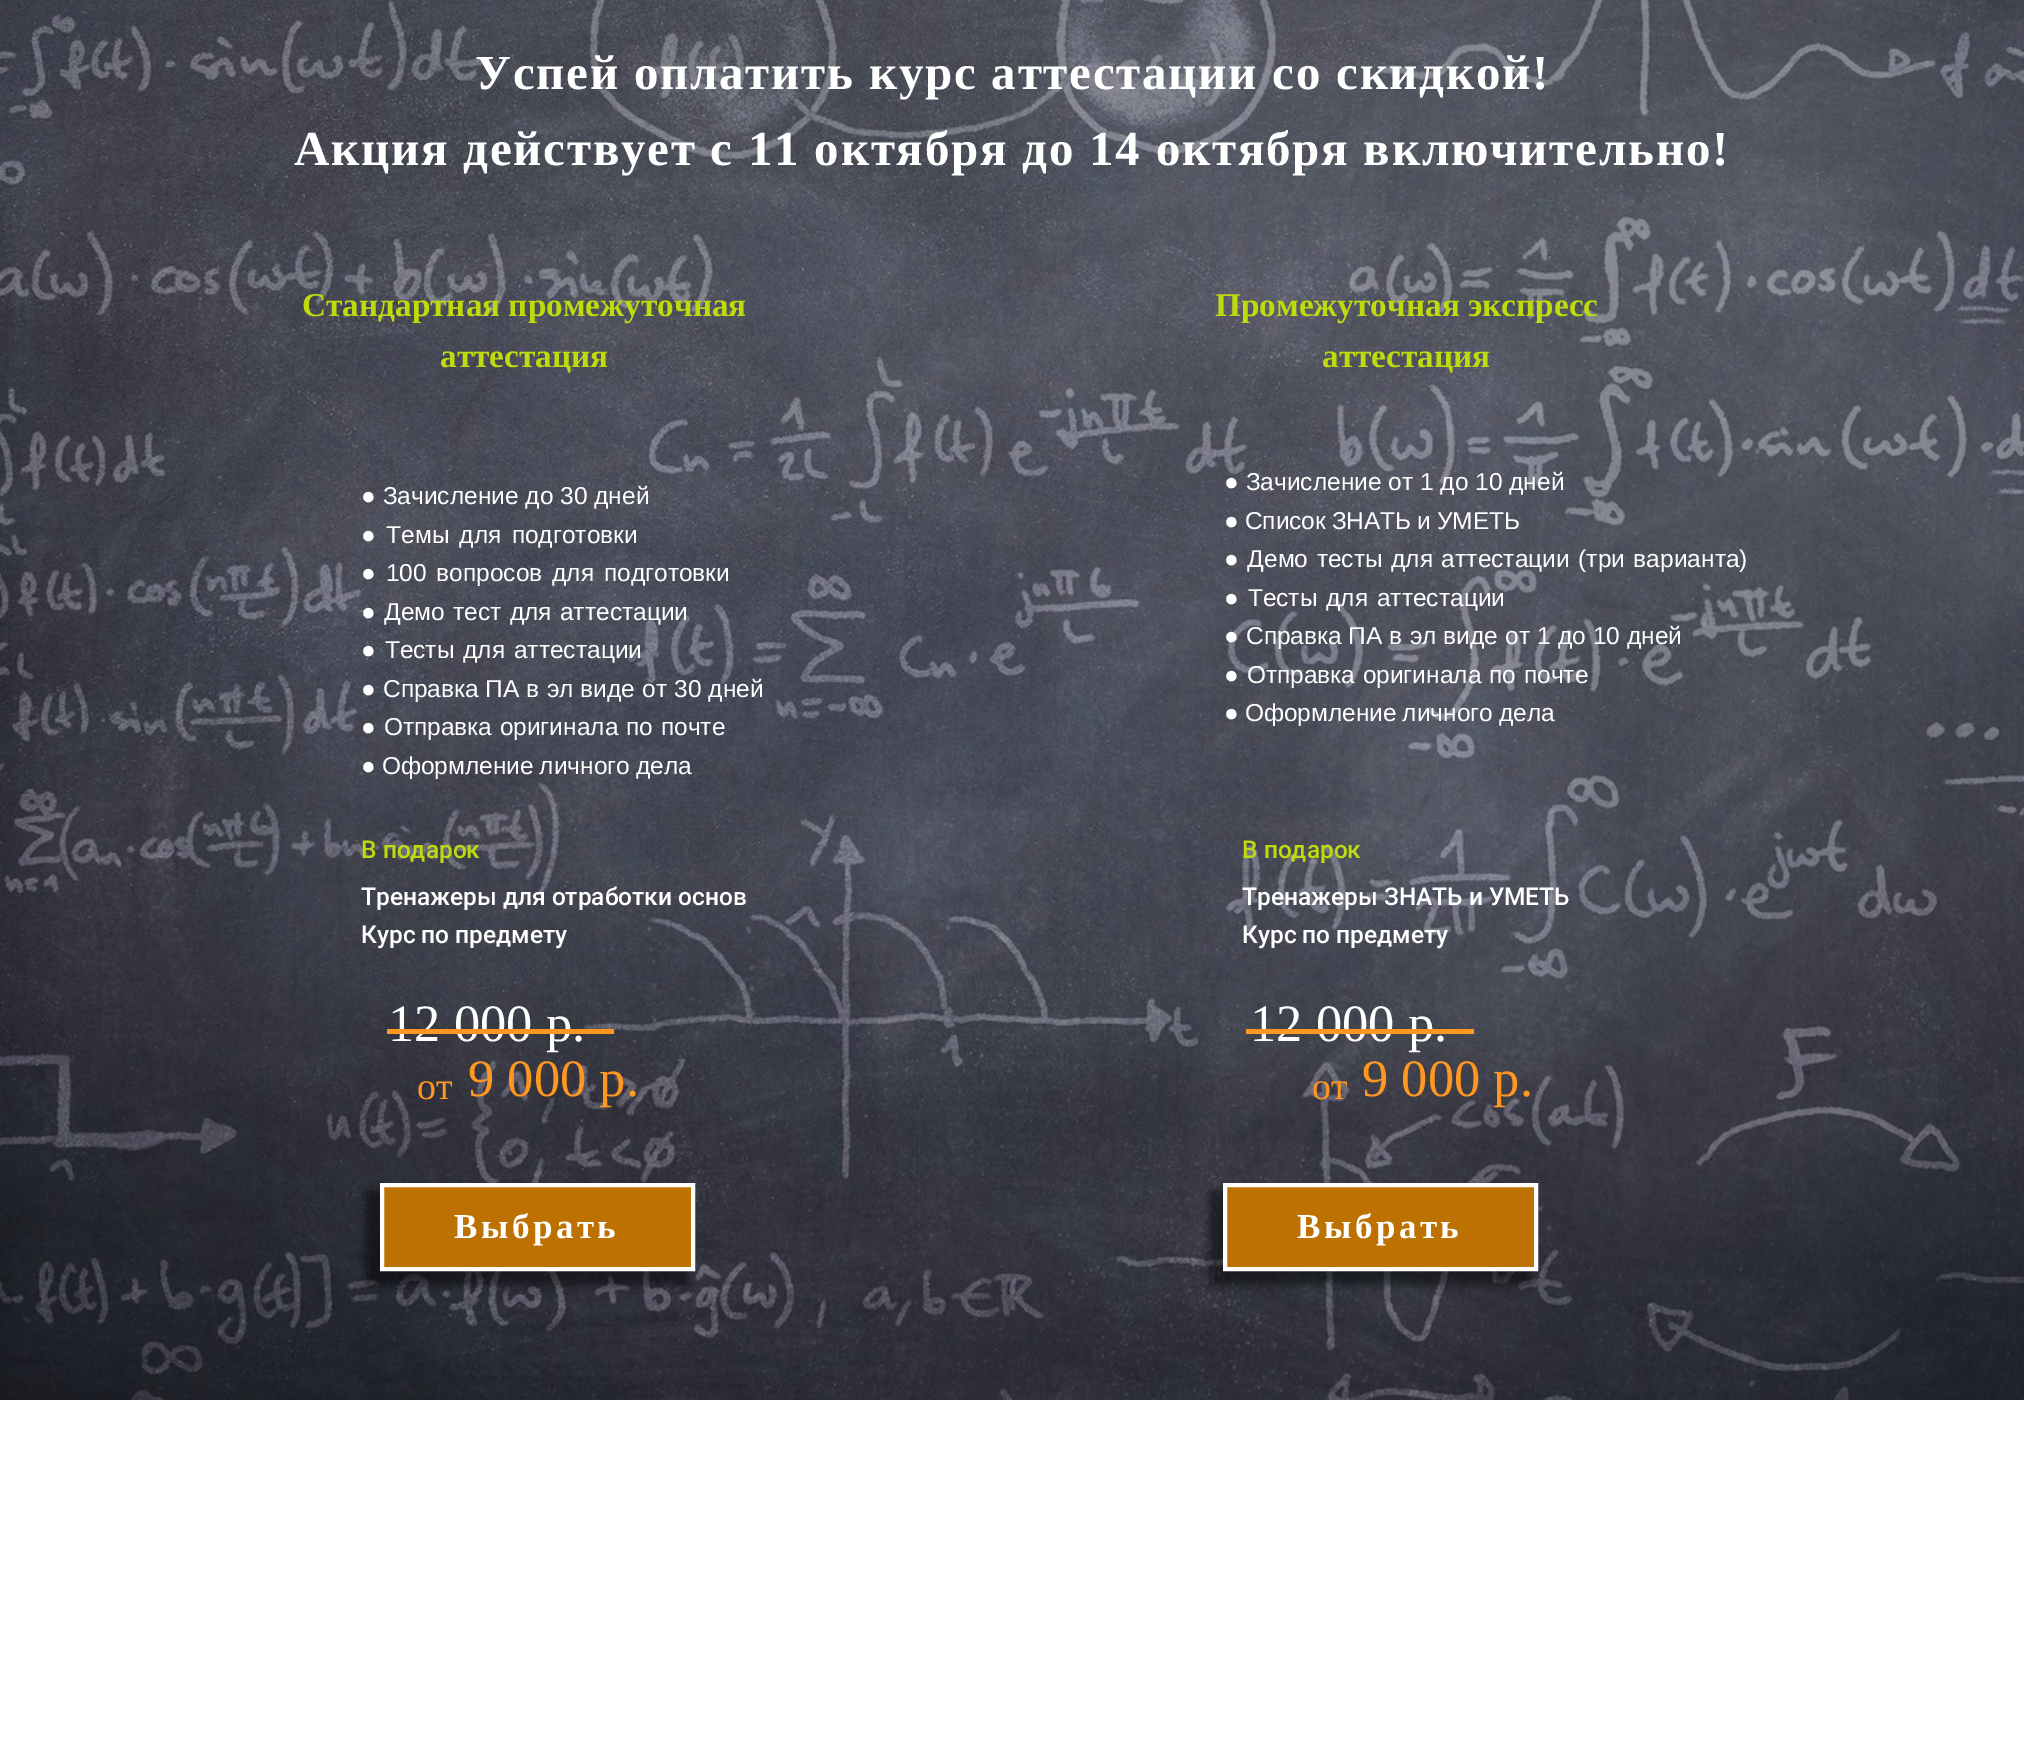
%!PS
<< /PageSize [2024 1756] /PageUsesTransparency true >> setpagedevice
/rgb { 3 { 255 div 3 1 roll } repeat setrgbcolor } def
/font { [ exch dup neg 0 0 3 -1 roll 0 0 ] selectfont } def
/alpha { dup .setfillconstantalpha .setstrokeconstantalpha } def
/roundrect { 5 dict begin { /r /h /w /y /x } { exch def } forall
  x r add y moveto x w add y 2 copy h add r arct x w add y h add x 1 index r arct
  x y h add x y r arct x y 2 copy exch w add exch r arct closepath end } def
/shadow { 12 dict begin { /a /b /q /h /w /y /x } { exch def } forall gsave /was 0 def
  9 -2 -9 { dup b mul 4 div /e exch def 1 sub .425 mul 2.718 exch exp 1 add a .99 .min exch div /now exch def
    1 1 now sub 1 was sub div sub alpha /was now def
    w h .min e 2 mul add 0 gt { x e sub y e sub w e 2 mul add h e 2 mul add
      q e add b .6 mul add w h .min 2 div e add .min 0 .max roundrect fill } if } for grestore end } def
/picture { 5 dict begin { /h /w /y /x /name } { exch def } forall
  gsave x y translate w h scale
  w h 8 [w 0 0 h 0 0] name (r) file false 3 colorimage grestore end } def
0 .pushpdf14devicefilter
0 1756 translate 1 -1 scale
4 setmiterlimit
255 255 255 rgb
0 0 2024 1756 rectfill
(img/1.rgb) 0 0 2024 1400 picture
(img/2.rgb) 0 0 2024 1400 picture
0 0 0 rgb
366 1190 322 95 0 4.5 0.5 shadow
189 113 0 rgb
382 1185 moveto 693 1185 lineto 693 1269 lineto 382 1269 lineto closepath gsave fill grestore
255 255 255 rgb
4 setlinewidth
stroke
0 0 0 rgb
1209 1190 322 95 0 4.5 0.5 shadow
189 113 0 rgb
1225 1185 moveto 1536 1185 lineto 1536 1269 lineto 1225 1269 lineto closepath gsave fill grestore
255 255 255 rgb
stroke
/LiberationSerif-Bold 49 font
475 89 moveto 1.75 0 (Успей оплатить курс аттестации со скидкой!) ashow
294 165 moveto 1.75 0 (Акция действует с 11 октября до 14 октября включительно!) ashow
/LiberationSerif-Bold 33.25 font
192 219 13 rgb
[
  [(Стандартная промежуточная) 302 316]
  [(аттестация) 440 367]
  [(Промежуточная экспресс) 1215 316]
  [(аттестация) 1322 367]
] { aload pop moveto show } forall
/LiberationSans-Regular 24.5 font
255 255 255 rgb
361 504 moveto (● Зачисление до 30 дней) show
361 543 moveto 3.5 0 32 (● Темы для подготовки) widthshow
361 581 moveto 3 0 32 (● 100 вопросов для подготовки) widthshow
361 620 moveto 1.5 0 32 (● Демо тест для аттестации) widthshow
361 658 moveto 2 0 32 (● Тесты для аттестации) widthshow
361 697 moveto 0.25 0 32 (● Справка ПА в эл виде от 30 дней) widthshow
361 735 moveto 1 0 32 (● Отправка оригинала по почте) widthshow
361 774 moveto -1 0 32 (● Оформление личного дела) widthshow
1224 490 moveto (● Зачисление от 1 до 10 дней) show
1224 529 moveto -1 0 32 (● Список ЗНАТЬ и УМЕТЬ) widthshow
1224 567 moveto 1.75 0 32 (● Демо тесты для аттестации \(три варианта\)) widthshow
1224 606 moveto 2 0 32 (● Тесты для аттестации) widthshow
1224 644 moveto 0.25 0 32 (● Справка ПА в эл виде от 1 до 10 дней) widthshow
1224 683 moveto 1 0 32 (● Отправка оригинала по почте) widthshow
1224 721 moveto -1 0 32 (● Оформление личного дела) widthshow
/Roboto-Medium 24.5 font
192 219 13 rgb
361 858 moveto (В подарок) show
1242 858 moveto (В подарок) show
255 255 255 rgb
[
  [(Тренажеры для отработки основ) 361 905]
  [(Курс по предмету) 361 943]
  [(Тренажеры ЗНАТЬ и УМЕТЬ) 1242 905]
  [(Курс по предмету) 1242 943]
] { aload pop moveto show } forall
/LiberationSerif-Regular 52.5 font
388 1041 moveto (12 000 р.) show
1250 1041 moveto (12 000 р.) show
255 151 33 rgb
387 1029 227 5 rectfill
1246 1029 228 5 rectfill
/LiberationSerif-Regular 38 font
417 1099 moveto (от) show
/LiberationSerif-Regular 52.5 font
468 1096 moveto (9 000 р.) show
/LiberationSerif-Regular 38 font
1312 1099 moveto (от) show
/LiberationSerif-Regular 52.5 font
1362 1096 moveto (9 000 р.) show
/LiberationSerif-Bold 35 font
255 255 255 rgb
454 1238 moveto 3.5 0 (Выбрать) ashow
1297 1238 moveto 3.5 0 (Выбрать) ashow
.poppdf14devicefilter showpage
